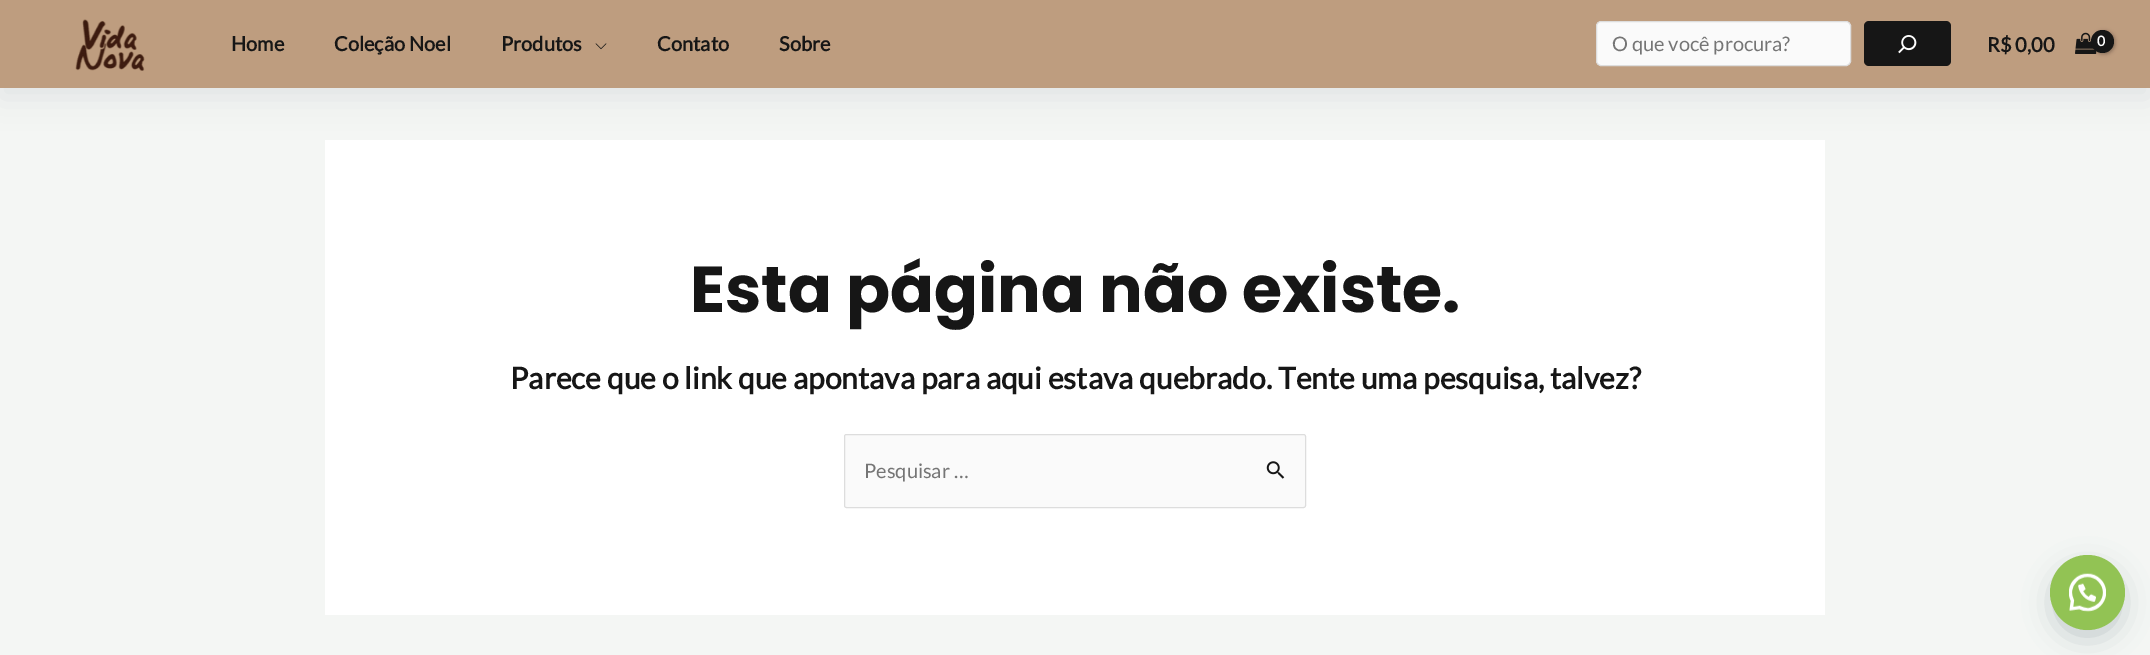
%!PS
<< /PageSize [2150 655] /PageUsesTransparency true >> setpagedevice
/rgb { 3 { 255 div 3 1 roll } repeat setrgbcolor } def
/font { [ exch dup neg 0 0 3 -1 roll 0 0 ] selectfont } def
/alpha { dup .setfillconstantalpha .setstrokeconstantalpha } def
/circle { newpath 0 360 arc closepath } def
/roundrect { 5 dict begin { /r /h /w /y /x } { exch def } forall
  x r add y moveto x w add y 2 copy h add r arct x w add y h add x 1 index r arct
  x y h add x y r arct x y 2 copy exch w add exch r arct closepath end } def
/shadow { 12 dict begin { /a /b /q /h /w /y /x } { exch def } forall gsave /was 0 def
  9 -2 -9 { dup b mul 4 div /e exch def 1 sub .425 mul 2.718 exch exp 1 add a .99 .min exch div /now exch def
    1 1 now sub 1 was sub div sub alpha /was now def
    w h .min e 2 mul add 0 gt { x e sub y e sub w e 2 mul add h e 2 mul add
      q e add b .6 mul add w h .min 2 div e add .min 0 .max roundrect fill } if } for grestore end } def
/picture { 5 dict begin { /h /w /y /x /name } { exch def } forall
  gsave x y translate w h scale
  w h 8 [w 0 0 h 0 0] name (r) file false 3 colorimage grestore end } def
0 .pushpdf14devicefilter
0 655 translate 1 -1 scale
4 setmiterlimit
244 246 244 rgb
0 0 2150 655 rectfill
255 255 255 rgb
325 140 1500 475 rectfill
149 157 165 rgb
0 10 2150 88 0 15 0.2 shadow
190 157 127 rgb
0 0 2150 88 rectfill
(img/1.rgb) 75 19 70 52 picture
(img/2.rgb) 595 43 12 7 picture
250 250 250 rgb
1596.5 21.5 254 44 4.5 roundrect gsave fill grestore
221 221 221 rgb
stroke
22 22 22 rgb
1864 21 87 45 5 roundrect fill
(img/3.rgb) 1898 35 19 19 picture
(img/4.rgb) 2075 32 22 22 picture
0 0 0 rgb
2093 31 22 23 11 2 0.3 shadow
22 22 22 rgb
2102.5 41.5 11.5 circle fill
250 250 250 rgb
844.5 434.5 461 73 2 roundrect gsave fill grestore
221 221 221 rgb
stroke
(img/5.rgb) 1266 461 19 18 picture
45 62 79 rgb
2056 571 63 63 31.5 15.5 0.3 shadow
146 195 84 rgb
2087.5 592.5 37.5 circle fill
(img/6.rgb) 2069 573 37 39 picture
/Lato-Bold 20 font
22 22 22 rgb
[
  [(Home) 231 51]
  [(Coleção Noel) 334 51]
  [(Produtos) 501 51]
  [(Contato) 657 51]
  [(Sobre) 779 51]
] { aload pop moveto show } forall
/Lato-Regular 20 font
117 117 117 rgb
1612 51 moveto (O que você procura?) show
/Lato-Bold 20 font
22 22 22 rgb
1987 52 moveto (R$ 0,00) show
/Lato-Bold 14 font
255 255 255 rgb
2097 46 moveto -1 0 (0) ashow
/Poppins-Bold 65 font
22 22 22 rgb
690 312 moveto (Esta página não existe.) show
/Lato-Bold 30 font
510 389 moveto (Parece que o link que apontava para aqui estava quebrado. Tente uma pesquisa, talvez?) show
/Lato-Regular 20 font
117 117 117 rgb
864 478 moveto (Pesquisar …) show
.poppdf14devicefilter showpage
